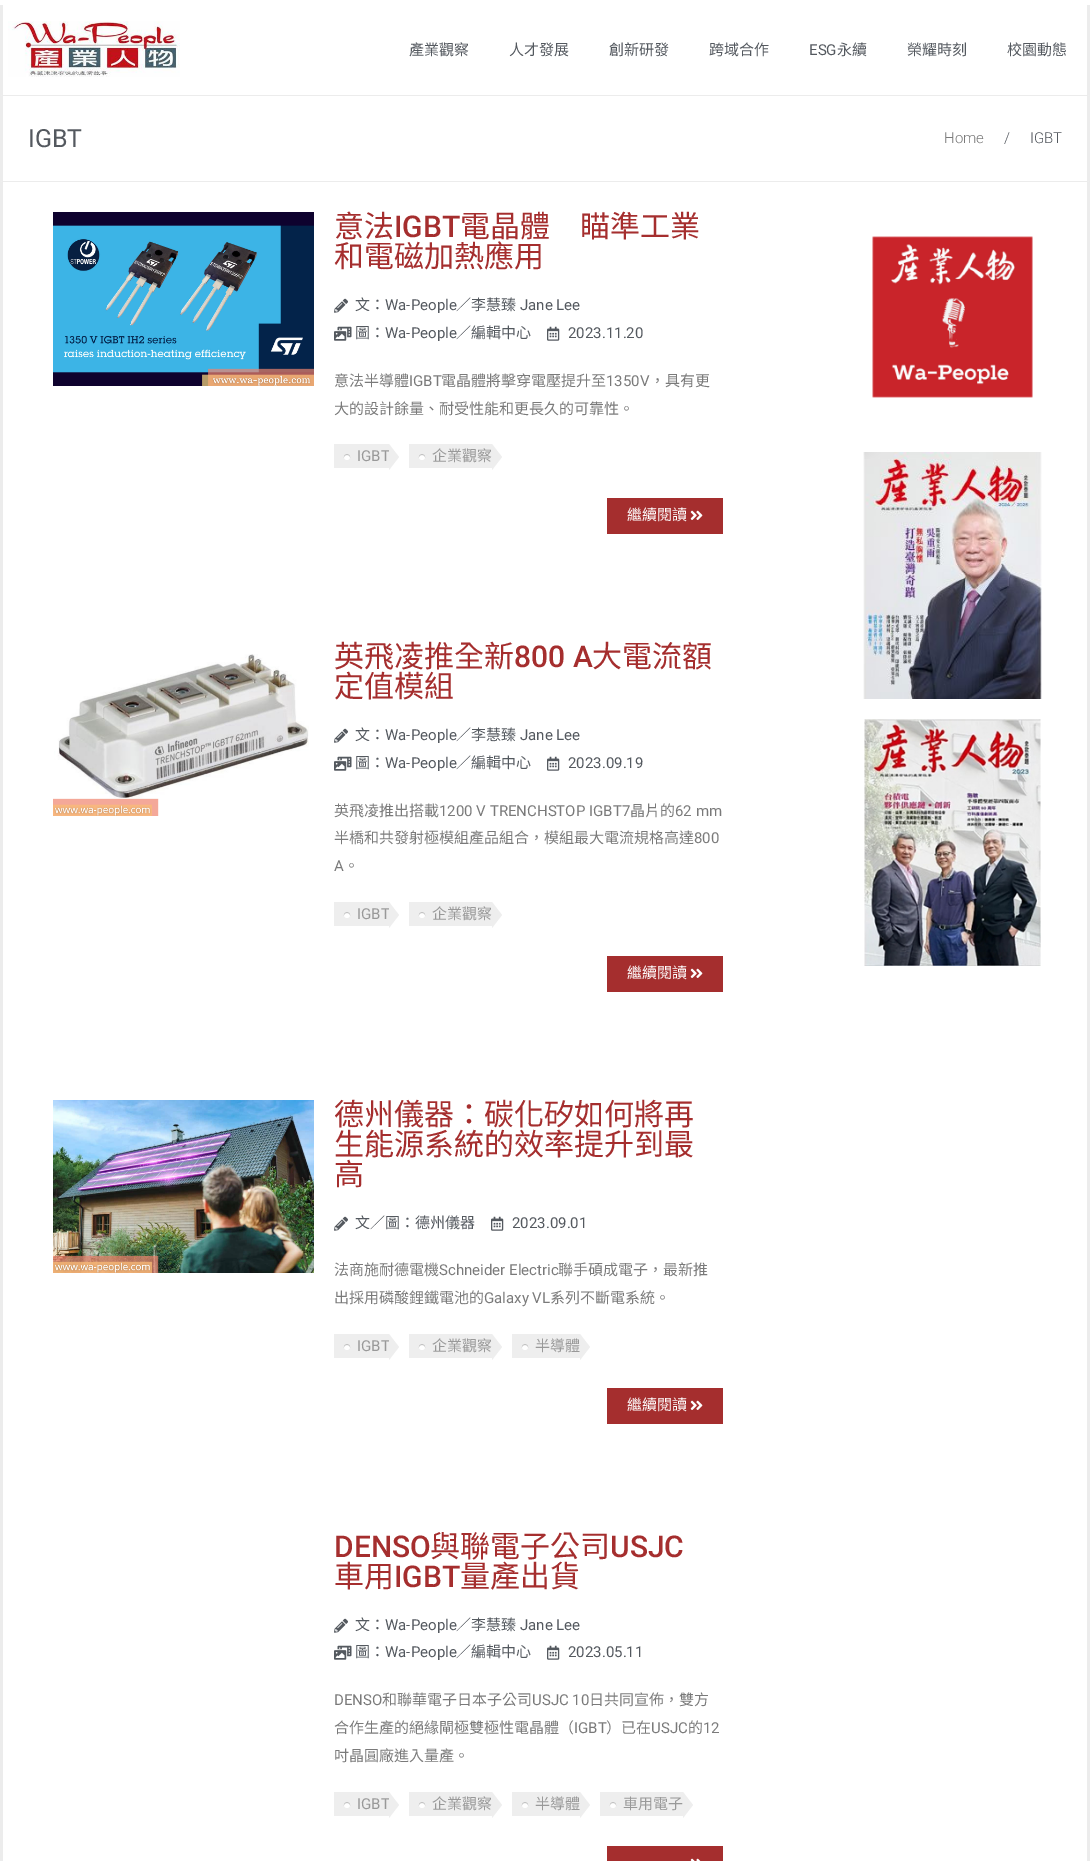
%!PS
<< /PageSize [1090 1861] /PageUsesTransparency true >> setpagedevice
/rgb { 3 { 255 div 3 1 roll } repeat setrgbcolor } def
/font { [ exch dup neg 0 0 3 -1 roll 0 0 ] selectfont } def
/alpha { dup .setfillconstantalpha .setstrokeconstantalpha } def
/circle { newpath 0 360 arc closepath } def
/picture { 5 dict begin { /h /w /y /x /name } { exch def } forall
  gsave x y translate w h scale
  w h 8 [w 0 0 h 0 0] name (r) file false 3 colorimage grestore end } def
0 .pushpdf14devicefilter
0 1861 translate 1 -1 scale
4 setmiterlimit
255 255 255 rgb
0 0 1090 1861 rectfill
236 236 236 rgb
0 5 3 90 rectfill
(img/1.rgb) 8 21 172 56 picture
1087 5 3 90 rectfill
0 95 moveto 523 95 lineto 523 96 lineto 3 96 lineto closepath fill
523 182 moveto 0 182 lineto 3 181 lineto 523 181 lineto closepath fill
0.8 alpha
231 231 231 rgb
0 182 moveto 0 95 lineto 3 96 lineto 3 181 lineto closepath fill
1 alpha
236 236 236 rgb
523 95 moveto 1090 95 lineto 1087 96 lineto 523 96 lineto closepath fill
0.8 alpha
231 231 231 rgb
1090 95 moveto 1090 182 lineto 1087 181 lineto 1087 96 lineto closepath fill
1090 182 moveto 523 182 lineto 523 181 lineto 1087 181 lineto closepath fill
1 alpha
236 236 236 rgb
0 182 3 1679 rectfill
(img/2.rgb) 53 212 261 174 picture
(img/3.rgb) 334 298 14 15 picture
(img/4.rgb) 334 326 18 15 picture
(img/5.rgb) 547 326 13 15 picture
238 238 238 rgb
334 444 55 24 rectfill
255 255 255 rgb
347 457 3 circle fill
0.25 alpha
0 0 0 rgb
347 455 moveto 349 455 350 456 350 457.5 curveto 350.5 453 343.5 453 344 457.5 curveto 344 456 345 455 347 455 curveto closepath fill
1 alpha
238 238 238 rgb
409 444 83 24 rectfill
255 255 255 rgb
422 457 3 circle fill
0.25 alpha
0 0 0 rgb
422 455 moveto 424 455 425 456 425 457.5 curveto 425.5 453 418.5 453 419 457.5 curveto 419 456 420 455 422 455 curveto closepath fill
1 alpha
238 238 238 rgb
492 470 moveto 492 444 lineto 502 457 lineto closepath fill
165 46 46 rgb
607 498 116 36 rectfill
(img/6.rgb) 690 510 13 10 picture
(img/7.rgb) 53 654 256 162 picture
(img/3.rgb) 334 728 14 15 picture
(img/4.rgb) 334 756 18 15 picture
(img/5.rgb) 547 756 13 15 picture
238 238 238 rgb
334 902 55 24 rectfill
255 255 255 rgb
347 915 3 circle fill
0.25 alpha
0 0 0 rgb
347 913 moveto 349 913 350 914 350 915.5 curveto 350.5 911 343.5 911 344 915.5 curveto 344 914 345 913 347 913 curveto closepath fill
1 alpha
238 238 238 rgb
409 902 83 24 rectfill
255 255 255 rgb
422 915 3 circle fill
0.25 alpha
0 0 0 rgb
422 913 moveto 424 913 425 914 425 915.5 curveto 425.5 911 418.5 911 419 915.5 curveto 419 914 420 913 422 913 curveto closepath fill
1 alpha
238 238 238 rgb
492 928 moveto 492 902 lineto 502 915 lineto closepath fill
165 46 46 rgb
607 956 116 36 rectfill
(img/6.rgb) 690 968 13 10 picture
(img/8.rgb) 53 1100 261 173 picture
(img/3.rgb) 334 1216 14 15 picture
(img/5.rgb) 491 1216 13 15 picture
238 238 238 rgb
334 1334 55 24 rectfill
255 255 255 rgb
347 1347 3 circle fill
0.25 alpha
0 0 0 rgb
347 1345 moveto 349 1345 350 1346 350 1347.5 curveto 350.5 1343 343.5 1343 344 1347.5 curveto 344 1346 345 1345 347 1345 curveto closepath fill
1 alpha
238 238 238 rgb
409 1334 83 24 rectfill
255 255 255 rgb
422 1347 3 circle fill
0.25 alpha
0 0 0 rgb
422 1345 moveto 424 1345 425 1346 425 1347.5 curveto 425.5 1343 418.5 1343 419 1347.5 curveto 419 1346 420 1345 422 1345 curveto closepath fill
1 alpha
238 238 238 rgb
492 1360 moveto 492 1334 lineto 502 1347 lineto closepath fill
512 1334 68 24 rectfill
255 255 255 rgb
525 1347 3 circle fill
0.25 alpha
0 0 0 rgb
525 1345 moveto 527 1345 528 1346 528 1347.5 curveto 528.5 1343 521.5 1343 522 1347.5 curveto 522 1346 523 1345 525 1345 curveto closepath fill
1 alpha
238 238 238 rgb
580 1360 moveto 580 1334 lineto 590 1347 lineto closepath fill
165 46 46 rgb
607 1388 116 36 rectfill
(img/6.rgb) 690 1400 13 10 picture
(img/3.rgb) 334 1618 14 15 picture
(img/4.rgb) 334 1645 18 15 picture
(img/5.rgb) 547 1645 13 15 picture
238 238 238 rgb
334 1792 55 24 rectfill
255 255 255 rgb
347 1805 3 circle fill
0.25 alpha
0 0 0 rgb
347 1803 moveto 349 1803 350 1804 350 1805.5 curveto 350.5 1801 343.5 1801 344 1805.5 curveto 344 1804 345 1803 347 1803 curveto closepath fill
1 alpha
238 238 238 rgb
409 1792 83 24 rectfill
255 255 255 rgb
422 1805 3 circle fill
0.25 alpha
0 0 0 rgb
422 1803 moveto 424 1803 425 1804 425 1805.5 curveto 425.5 1801 418.5 1801 419 1805.5 curveto 419 1804 420 1803 422 1803 curveto closepath fill
1 alpha
238 238 238 rgb
492 1818 moveto 492 1792 lineto 502 1805 lineto closepath fill
512 1792 68 24 rectfill
255 255 255 rgb
525 1805 3 circle fill
0.25 alpha
0 0 0 rgb
525 1803 moveto 527 1803 528 1804 528 1805.5 curveto 528.5 1801 521.5 1801 522 1805.5 curveto 522 1804 523 1803 525 1803 curveto closepath fill
1 alpha
238 238 238 rgb
580 1818 moveto 580 1792 lineto 590 1805 lineto closepath fill
600 1792 83 24 rectfill
255 255 255 rgb
613 1805 3 circle fill
0.25 alpha
0 0 0 rgb
613 1803 moveto 615 1803 616 1804 616 1805.5 curveto 616.5 1801 609.5 1801 610 1805.5 curveto 610 1804 611 1803 613 1803 curveto closepath fill
1 alpha
238 238 238 rgb
683 1818 moveto 683 1792 lineto 693 1805 lineto closepath fill
165 46 46 rgb
607 1846 116 15 rectfill
(img/9.rgb) 690 1858 11 3 picture
236 236 236 rgb
1087 182 3 1679 rectfill
(img/10.rgb) 872 236 161 162 picture
(img/11.rgb) 863 452 179 247 picture
(img/12.rgb) 864 719 177 247 picture
/NotoSansCJKTC-Regular 15 font
84 89 95 rgb
[
  [(產業觀察) 409 55]
  [(人才發展) 509 55]
  [(創新研發) 609 55]
  [(跨域合作) 709 55]
] { aload pop moveto show } forall
/Roboto-Regular 15 font
809 55 moveto (ESG) show
/NotoSansCJKTC-Regular 15 font
[
  [(永續) 837 55]
  [(榮耀時刻) 907 55]
  [(校園動態) 1007 55]
] { aload pop moveto show } forall
/Roboto-Regular 25 font
28 147 moveto (IGBT) show
/Roboto-Light 15 font
122 122 122 rgb
944 143 moveto (Home) show
84 89 95 rgb
1004 143 moveto (/) show
1030 143 moveto (IGBT) show
/NotoSansCJKTC-Regular 30 font
165 46 46 rgb
334 237 moveto (意法) show
/Roboto-Medium 30 font
394 237 moveto (IGBT) show
/NotoSansCJKTC-Regular 30 font
460 237 moveto (電晶體　瞄準工業) show
334 267 moveto (和電磁加熱應用) show
/NotoSansCJKTC-Regular 15 font
84 89 95 rgb
355 310 moveto (文：) show
/Roboto-Regular 15 font
385 310 moveto (Wa-People) show
/NotoSansCJKTC-Regular 15 font
456 310 moveto (／李慧臻) show
/Roboto-Regular 15 font
520 310 moveto (Jane Lee) show
/NotoSansCJKTC-Regular 15 font
355 338 moveto (圖：) show
/Roboto-Regular 15 font
385 338 moveto (Wa-People) show
/NotoSansCJKTC-Regular 15 font
456 338 moveto (／編輯中心) show
/Roboto-Regular 15 font
568 338 moveto (2023.11.20) show
/NotoSansCJKTC-Regular 15 font
122 122 122 rgb
334 386 moveto (意法半導體) show
/Roboto-Regular 15 font
409 386 moveto (IGBT) show
/NotoSansCJKTC-Regular 15 font
441 386 moveto (電晶體將擊穿電壓提升至) show
/Roboto-Regular 15 font
606 386 moveto (1350V) show
/NotoSansCJKTC-Regular 15 font
650 386 moveto (，具有更) show
334 414 moveto (大的設計餘量、耐受性能和更長久的可靠性。) show
/Roboto-Regular 15 font
153 153 153 rgb
357 461 moveto (IGBT) show
255 255 255 rgb
389 450 1 2 rectfill
238 238 238 rgb
389 470 moveto 389 444 lineto 399 457 lineto closepath fill
/NotoSansCJKTC-Regular 15 font
153 153 153 rgb
432 461 moveto (企業觀察) show
255 255 255 rgb
627 520 moveto (繼續閱讀) show
/NotoSansCJKTC-Regular 30 font
165 46 46 rgb
334 667 moveto (英飛凌推全新) show
/Roboto-Medium 30 font
514 667 moveto (800 A) show
/NotoSansCJKTC-Regular 30 font
592 667 moveto (大電流額) show
334 697 moveto (定值模組) show
/NotoSansCJKTC-Regular 15 font
84 89 95 rgb
355 740 moveto (文：) show
/Roboto-Regular 15 font
385 740 moveto (Wa-People) show
/NotoSansCJKTC-Regular 15 font
456 740 moveto (／李慧臻) show
/Roboto-Regular 15 font
520 740 moveto (Jane Lee) show
/NotoSansCJKTC-Regular 15 font
355 768 moveto (圖：) show
/Roboto-Regular 15 font
385 768 moveto (Wa-People) show
/NotoSansCJKTC-Regular 15 font
456 768 moveto (／編輯中心) show
/Roboto-Regular 15 font
568 768 moveto (2023.09.19) show
/NotoSansCJKTC-Regular 15 font
122 122 122 rgb
334 816 moveto (英飛凌推出搭載) show
/Roboto-Regular 15 font
439 816 moveto (1200 V TRENCHSTOP IGBT7) show
/NotoSansCJKTC-Regular 15 font
630 816 moveto (晶片的) show
/Roboto-Regular 15 font
675 816 moveto (62 mm) show
/NotoSansCJKTC-Regular 15 font
334 843 moveto (半橋和共發射極模組產品組合，模組最大電流規格高達) show
/Roboto-Regular 15 font
694 843 moveto (800) show
334 871 moveto (A) show
/NotoSansCJKTC-Regular 15 font
344 871 moveto (。) show
/Roboto-Regular 15 font
153 153 153 rgb
357 919 moveto (IGBT) show
255 255 255 rgb
389 908 1 2 rectfill
238 238 238 rgb
389 928 moveto 389 902 lineto 399 915 lineto closepath fill
/NotoSansCJKTC-Regular 15 font
153 153 153 rgb
432 919 moveto (企業觀察) show
255 255 255 rgb
627 978 moveto (繼續閱讀) show
/NotoSansCJKTC-Regular 30 font
165 46 46 rgb
[
  [(德州儀器：碳化矽如何將再) 334 1125]
  [(生能源系統的效率提升到最) 334 1155]
  [(高) 334 1185]
] { aload pop moveto show } forall
/NotoSansCJKTC-Regular 15 font
84 89 95 rgb
355 1228 moveto (文／圖：德州儀器) show
/Roboto-Regular 15 font
512 1228 moveto (2023.09.01) show
/NotoSansCJKTC-Regular 15 font
122 122 122 rgb
334 1275 moveto (法商施耐德電機) show
/Roboto-Regular 15 font
439 1275 moveto (Schneider Electric) show
/NotoSansCJKTC-Regular 15 font
558 1275 moveto (聯手碩成電子，最新推) show
334 1303 moveto (出採用磷酸鋰鐵電池的) show
/Roboto-Regular 15 font
484 1303 moveto (Galaxy VL) show
/NotoSansCJKTC-Regular 15 font
550 1303 moveto (系列不斷電系統。) show
/Roboto-Regular 15 font
153 153 153 rgb
357 1351 moveto (IGBT) show
255 255 255 rgb
389 1340 1 2 rectfill
238 238 238 rgb
389 1360 moveto 389 1334 lineto 399 1347 lineto closepath fill
/NotoSansCJKTC-Regular 15 font
153 153 153 rgb
432 1351 moveto (企業觀察) show
535 1351 moveto (半導體) show
255 255 255 rgb
627 1410 moveto (繼續閱讀) show
/Roboto-Medium 30 font
165 46 46 rgb
334 1557 moveto (DENSO) show
/NotoSansCJKTC-Regular 30 font
430 1557 moveto (與聯電子公司) show
/Roboto-Medium 30 font
610 1557 moveto (USJC) show
/NotoSansCJKTC-Regular 30 font
334 1587 moveto (車用) show
/Roboto-Medium 30 font
394 1587 moveto (IGBT) show
/NotoSansCJKTC-Regular 30 font
460 1587 moveto (量產出貨) show
/NotoSansCJKTC-Regular 15 font
84 89 95 rgb
355 1630 moveto (文：) show
/Roboto-Regular 15 font
385 1630 moveto (Wa-People) show
/NotoSansCJKTC-Regular 15 font
456 1630 moveto (／李慧臻) show
/Roboto-Regular 15 font
520 1630 moveto (Jane Lee) show
/NotoSansCJKTC-Regular 15 font
355 1657 moveto (圖：) show
/Roboto-Regular 15 font
385 1657 moveto (Wa-People) show
/NotoSansCJKTC-Regular 15 font
456 1657 moveto (／編輯中心) show
/Roboto-Regular 15 font
568 1657 moveto (2023.05.11) show
122 122 122 rgb
334 1705 moveto (DENSO) show
/NotoSansCJKTC-Regular 15 font
382 1705 moveto (和聯華電子日本子公司) show
/Roboto-Regular 15 font
532 1705 moveto (USJC 10) show
/NotoSansCJKTC-Regular 15 font
589 1705 moveto (日共同宣佈，雙方) show
334 1733 moveto (合作生產的絕緣閘極雙極性電晶體（) show
/Roboto-Regular 15 font
574 1733 moveto (IGBT) show
/NotoSansCJKTC-Regular 15 font
606 1733 moveto (）已在) show
/Roboto-Regular 15 font
651 1733 moveto (USJC) show
/NotoSansCJKTC-Regular 15 font
688 1733 moveto (的) show
/Roboto-Regular 15 font
703 1733 moveto (12) show
/NotoSansCJKTC-Regular 15 font
334 1761 moveto (吋晶圓廠進入量產。) show
/Roboto-Regular 15 font
153 153 153 rgb
357 1809 moveto (IGBT) show
255 255 255 rgb
389 1798 1 2 rectfill
238 238 238 rgb
389 1818 moveto 389 1792 lineto 399 1805 lineto closepath fill
/NotoSansCJKTC-Regular 15 font
153 153 153 rgb
[
  [(企業觀察) 432 1809]
  [(半導體) 535 1809]
  [(車用電子) 623 1809]
] { aload pop moveto show } forall
.poppdf14devicefilter showpage
